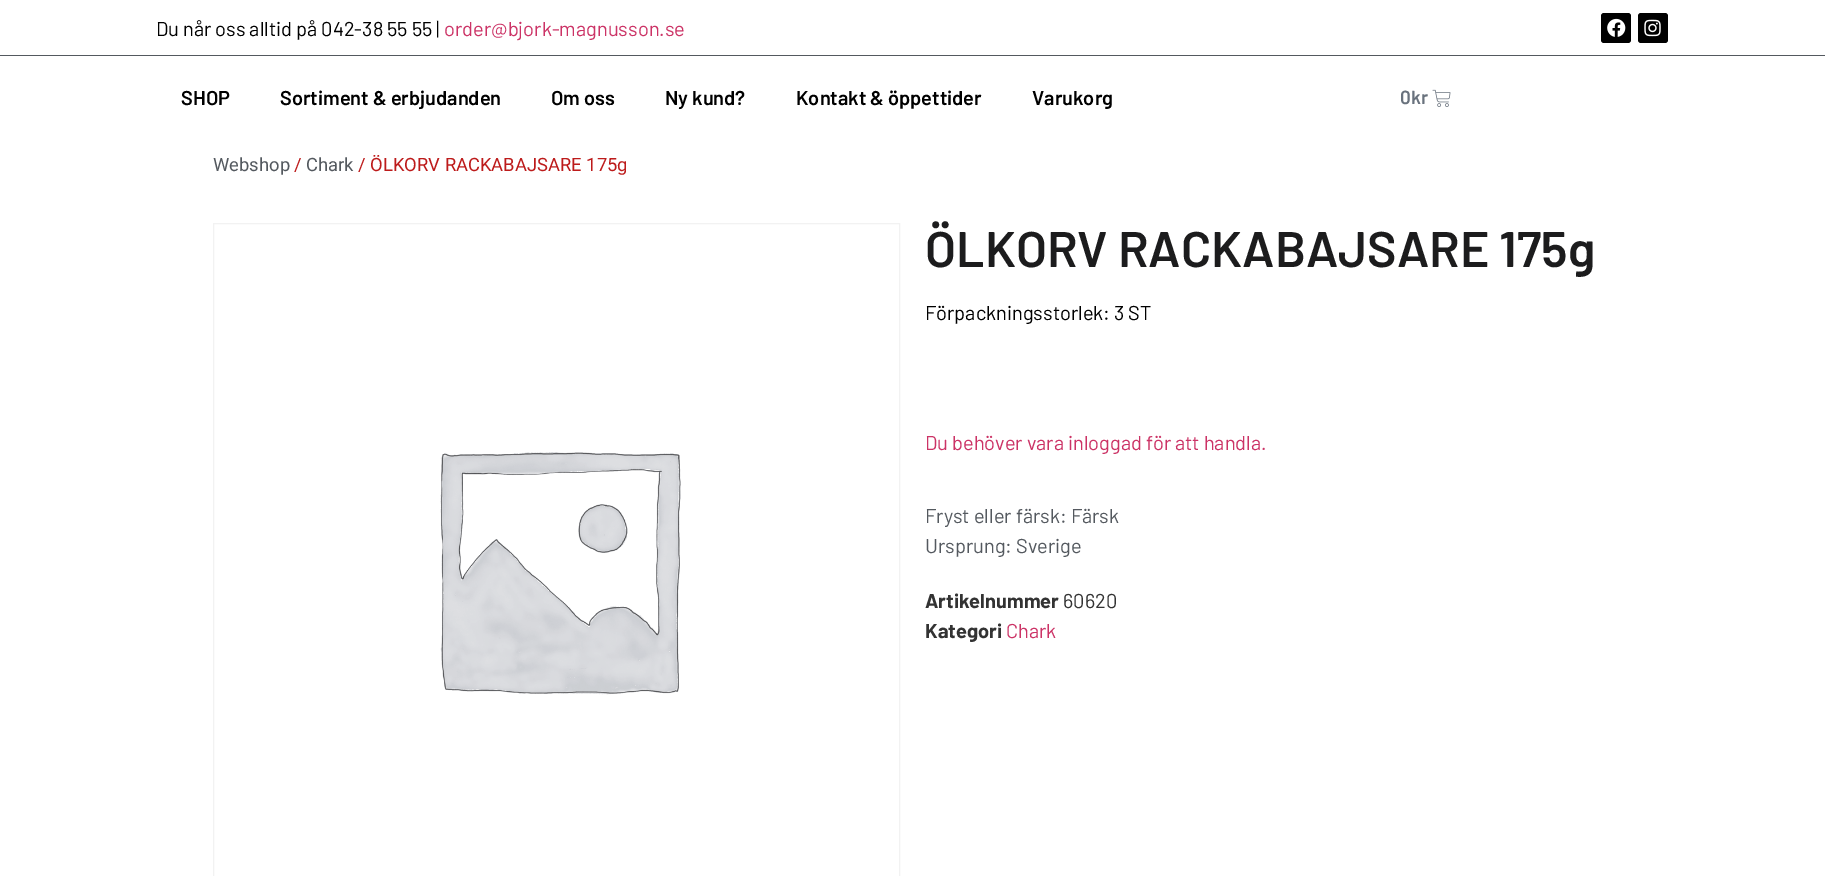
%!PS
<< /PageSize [1825 876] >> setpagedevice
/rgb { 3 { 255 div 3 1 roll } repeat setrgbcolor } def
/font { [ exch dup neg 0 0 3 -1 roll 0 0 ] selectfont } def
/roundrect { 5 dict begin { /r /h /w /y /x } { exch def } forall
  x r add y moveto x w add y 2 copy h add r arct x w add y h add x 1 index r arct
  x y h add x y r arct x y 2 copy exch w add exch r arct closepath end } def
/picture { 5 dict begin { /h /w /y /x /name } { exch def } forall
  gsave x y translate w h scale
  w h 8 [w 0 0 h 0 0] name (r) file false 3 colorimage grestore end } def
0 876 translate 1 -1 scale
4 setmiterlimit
255 255 255 rgb
0 0 1825 876 rectfill
84 89 95 rgb
0 55 1825 1 rectfill
0 0 0 rgb
1601 13 30 30 3 roundrect fill
(img/1.rgb) 1607 18 19 19 picture
1638 13 30 30 3 roundrect fill
(img/2.rgb) 1644 19 17 18 picture
(img/3.rgb) 1432 89 19 18 picture
242 242 242 rgb
213.5 223.5 686 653 rectstroke
(img/4.rgb) 440 452 241 243 picture
/Barlow-Regular 20 font
0 0 0 rgb
156 36 moveto (Du når oss alltid på 042-38 55 55 |) show
204 51 102 rgb
444 36 moveto (order@bjork-magnusson.se) show
/Barlow-SemiBold 20 font
0 0 0 rgb
[
  [(SHOP) 181 105]
  [(Sortiment & erbjudanden) 280 105]
  [(Om oss) 551 105]
  [(Ny kund?) 665 105]
  [(Kontakt & öppettider) 796 105]
  [(Varukorg) 1032 105]
] { aload pop moveto show } forall
/Barlow-SemiBold 19 font
105 114 125 rgb
1400 104 moveto (0kr) show
/Roboto-Regular 18.4 font
84 89 95 rgb
213 171 moveto (Webshop) show
189 27 27 rgb
294 171 moveto (/) show
84 89 95 rgb
306 171 moveto (Chark) show
189 27 27 rgb
358 171 moveto (/ ÖLKORV RACKABAJSARE 175g) show
/Barlow-SemiBold 50 font
28 28 29 rgb
925 267 moveto (ÖLKORV RACKABAJSARE 175g) show
/Barlow-Regular 20 font
0 0 0 rgb
925 320 moveto (Förpackningsstorlek: 3 ST) show
204 51 102 rgb
925 450 moveto (Du behöver vara inloggad för att handla.) show
84 89 95 rgb
925 523 moveto (Fryst eller färsk: Färsk) show
925 553 moveto (Ursprung: Sverige) show
/Barlow-Bold 20 font
51 51 51 rgb
925 608 moveto (Artikelnummer) show
/Barlow-Regular 20 font
1063 608 moveto (60620) show
/Barlow-Bold 20 font
925 638 moveto (Kategori) show
/Barlow-Regular 20 font
204 51 102 rgb
1006 638 moveto (Chark) show
showpage
